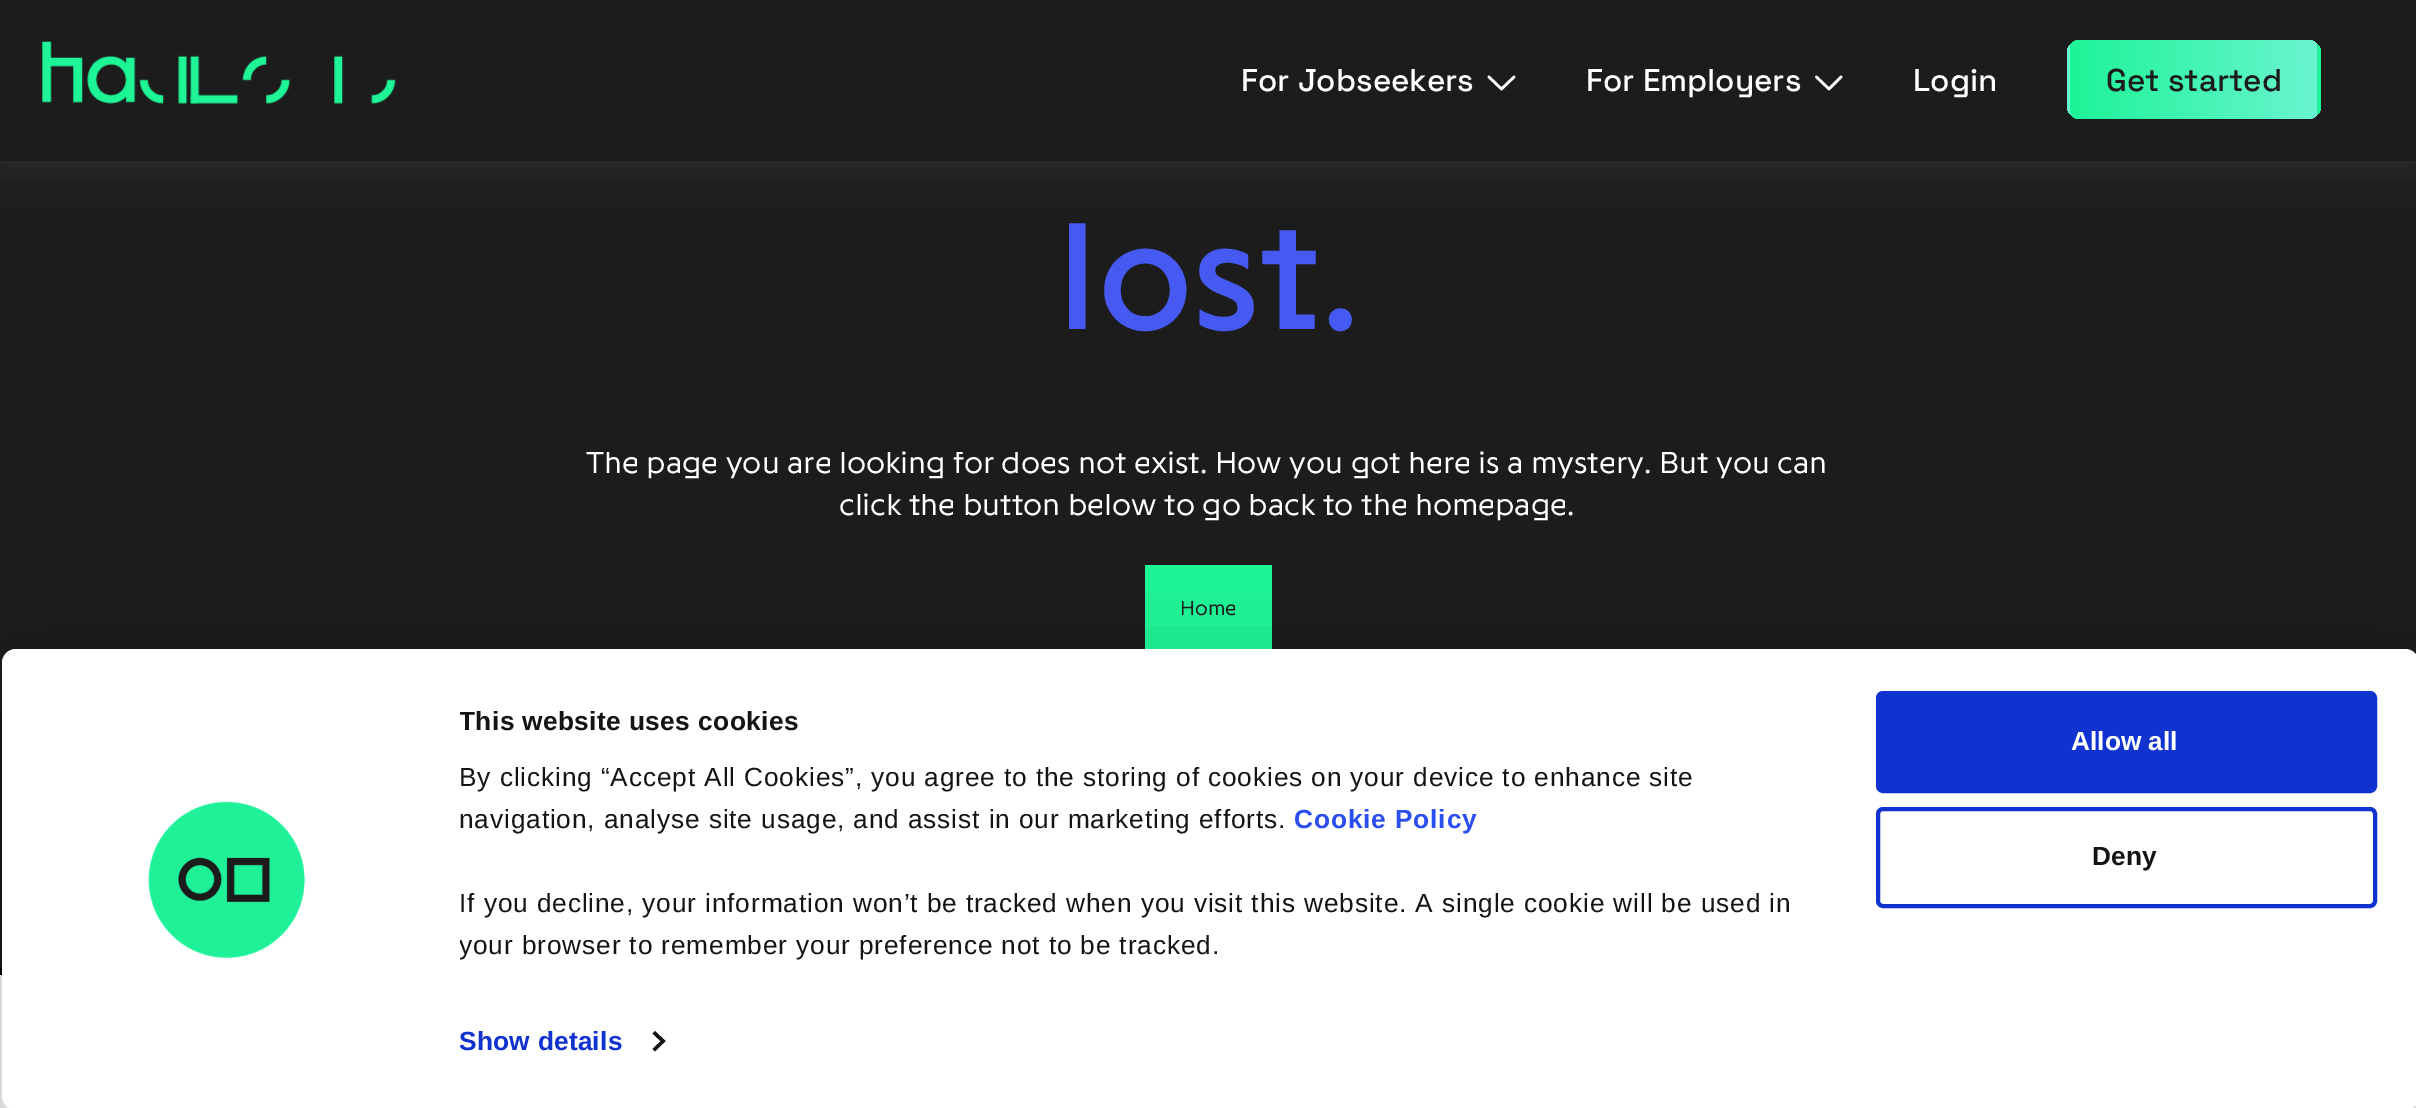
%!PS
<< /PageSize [2416 1108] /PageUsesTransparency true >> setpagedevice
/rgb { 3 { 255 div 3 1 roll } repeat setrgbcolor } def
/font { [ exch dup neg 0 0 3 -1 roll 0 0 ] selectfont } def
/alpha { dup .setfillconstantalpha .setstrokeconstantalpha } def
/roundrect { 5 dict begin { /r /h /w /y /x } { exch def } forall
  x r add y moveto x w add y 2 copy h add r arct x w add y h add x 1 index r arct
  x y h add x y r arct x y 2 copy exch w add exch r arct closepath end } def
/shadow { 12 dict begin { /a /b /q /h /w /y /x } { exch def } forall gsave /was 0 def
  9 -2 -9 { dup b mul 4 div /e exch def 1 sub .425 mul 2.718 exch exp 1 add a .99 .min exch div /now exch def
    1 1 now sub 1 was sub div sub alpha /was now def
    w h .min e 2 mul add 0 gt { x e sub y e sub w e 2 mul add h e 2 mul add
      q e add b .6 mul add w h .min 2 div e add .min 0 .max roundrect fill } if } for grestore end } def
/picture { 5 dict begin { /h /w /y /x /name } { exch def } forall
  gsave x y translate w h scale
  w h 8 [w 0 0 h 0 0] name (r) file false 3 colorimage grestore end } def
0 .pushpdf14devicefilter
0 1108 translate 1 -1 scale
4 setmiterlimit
28 28 28 rgb
0 0 2416 1108 rectfill
119 131 143 rgb
0 0 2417 161 0 26 0.2 shadow
28 28 28 rgb
0 0 2416 161 rectfill
(img/1.rgb) 42 41 354 63 picture
255 255 255 rgb
2.6 setlinewidth
1 setlinecap
1 setlinejoin
1514 77 moveto 1501.5 89 lineto 1489 77 lineto stroke
1841 77 moveto 1829 89 lineto 1816.5 77 lineto stroke
gsave
2067 40 254 79 14 roundrect clip newpath
gsave 2070 40 moveto 2317 40 lineto 2317 44 lineto 2070 44 lineto closepath clip newpath
<< /ShadingType 2 /ColorSpace /DeviceRGB /Coords [2069 11 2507 0.4] /Extend [true true] /Function << /FunctionType 3 /Domain [0 1] /Functions [<< /FunctionType 2 /Domain [0 1] /C0 [0.118 0.953 0.596] /C1 [0.118 0.953 0.596] /N 1 >> << /FunctionType 2 /Domain [0 1] /C0 [0.118 0.953 0.596] /C1 [0.647 0.961 0.984] /N 1 >>] /Bounds [0.01] /Encode [0 1 0 1] >> >> shfill grestore
gsave 2067 44 moveto 2070 44 lineto 2070 116 lineto 2067 116 lineto closepath clip newpath
<< /ShadingType 2 /ColorSpace /DeviceRGB /Coords [1823 83 2260 72] /Extend [true true] /Function << /FunctionType 3 /Domain [0 1] /Functions [<< /FunctionType 2 /Domain [0 1] /C0 [0.118 0.953 0.596] /C1 [0.118 0.953 0.596] /N 1 >> << /FunctionType 2 /Domain [0 1] /C0 [0.118 0.953 0.596] /C1 [0.647 0.961 0.984] /N 1 >>] /Bounds [0.01] /Encode [0 1 0 1] >> >> shfill grestore
gsave 2070 44 moveto 2317 44 lineto 2317 116 lineto 2070 116 lineto closepath clip newpath
<< /ShadingType 2 /ColorSpace /DeviceRGB /Coords [2069 83 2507 72] /Extend [true true] /Function << /FunctionType 3 /Domain [0 1] /Functions [<< /FunctionType 2 /Domain [0 1] /C0 [0.118 0.953 0.596] /C1 [0.118 0.953 0.596] /N 1 >> << /FunctionType 2 /Domain [0 1] /C0 [0.118 0.953 0.596] /C1 [0.647 0.961 0.984] /N 1 >>] /Bounds [0.01] /Encode [0 1 0 1] >> >> shfill grestore
gsave 2317 44 moveto 2321 44 lineto 2321 116 lineto 2317 116 lineto closepath clip newpath
<< /ShadingType 2 /ColorSpace /DeviceRGB /Coords [2316 83 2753 72] /Extend [true true] /Function << /FunctionType 3 /Domain [0 1] /Functions [<< /FunctionType 2 /Domain [0 1] /C0 [0.118 0.953 0.596] /C1 [0.118 0.953 0.596] /N 1 >> << /FunctionType 2 /Domain [0 1] /C0 [0.118 0.953 0.596] /C1 [0.647 0.961 0.984] /N 1 >>] /Bounds [0.01] /Encode [0 1 0 1] >> >> shfill grestore
gsave 2070 116 moveto 2317 116 lineto 2317 119 lineto 2070 119 lineto closepath clip newpath
<< /ShadingType 2 /ColorSpace /DeviceRGB /Coords [2069 154 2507 144] /Extend [true true] /Function << /FunctionType 3 /Domain [0 1] /Functions [<< /FunctionType 2 /Domain [0 1] /C0 [0.118 0.953 0.596] /C1 [0.118 0.953 0.596] /N 1 >> << /FunctionType 2 /Domain [0 1] /C0 [0.118 0.953 0.596] /C1 [0.647 0.961 0.984] /N 1 >>] /Bounds [0.01] /Encode [0 1 0 1] >> >> shfill grestore
grestore
[
  [1145 565 127 84 30 245 150]
  [0 975 2416 133 255 255 255]
  [0 968 2 7 0 0 0]
] { aload pop rgb rectfill } forall
gsave
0 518 moveto 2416 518 lineto 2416 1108 lineto 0 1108 lineto closepath 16 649 moveto 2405 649 lineto 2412.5 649 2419 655.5 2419 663 curveto 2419 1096 lineto 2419 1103.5 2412.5 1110 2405 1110 curveto 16 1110 lineto 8.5 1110 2 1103.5 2 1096 curveto 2 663 lineto 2 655.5 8.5 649 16 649 curveto closepath eoclip newpath
2 702 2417 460 14 61 0.3 shadow
grestore
255 255 255 rgb
2 649 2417 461 14 roundrect fill
(img/2.rgb) 148 801 157 157 picture
20 20 20 rgb
655 1031 moveto 665.5 1041 lineto 663 1043.5 lineto 652.5 1033.5 lineto closepath fill
663 1039 moveto 665.5 1041 lineto 655 1051.5 lineto 652.5 1049 lineto closepath fill
16 50 207 rgb
1878 693 497 98 5 roundrect gsave fill grestore
4 setlinewidth
0 setlinecap
0 setlinejoin
stroke
1878 809 497 97 5 roundrect stroke
/SpaceGrotesk-Medium 31.5 font
255 255 255 rgb
[
  [(For Jobseekers) 1241 91]
  [(For Employers) 1586 91]
  [(Login) 1913 91]
] { aload pop moveto show } forall
28 28 28 rgb
2106 91 moveto (Get started) show
/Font-Regular 158 font
70 90 241 rgb
1057 329 moveto (lost.) show
/Font-Light 31.5 font
255 255 255 rgb
586 473 moveto (The page you are looking for does not exist. How you got here is a mystery. But you can) show
839 515 moveto (click the button below to go back to the homepage.) show
/Font-Light 21 font
28 28 28 rgb
1180 615 moveto (Home) show
gsave
460 702 1406 264 rectclip
/LiberationSans-Bold 26.25 font
20 20 20 rgb
459 730 moveto 0.4 0 (This website uses cookies) ashow
grestore
/LiberationSans-Regular 26.25 font
20 20 20 rgb
459 786 moveto 0.88 0 (By clicking “Accept All Cookies”, you agree to the storing of cookies on your device to enhance site) ashow
459 828 moveto 0.88 0 (navigation, analyse site usage, and assist in our marketing efforts.) ashow
/LiberationSans-Bold 26.25 font
42 78 239 rgb
1294 828 moveto 0.88 0 (Cookie Policy) ashow
/LiberationSans-Regular 26.25 font
20 20 20 rgb
459 912 moveto 0.88 0 (If you decline, your information won’t be tracked when you visit this website. A single cookie will be used in) ashow
gsave
460 702 1406 264 rectclip
459 954 moveto 0.88 0 (your browser to remember your preference not to be tracked.) ashow
grestore
/LiberationSans-Bold 26.25 font
16 50 207 rgb
459 1050 moveto 0.25 0 (Show details) ashow
255 255 255 rgb
2071 750 moveto (Allow all) show
20 20 20 rgb
2092 865 moveto (Deny) show
.poppdf14devicefilter showpage
